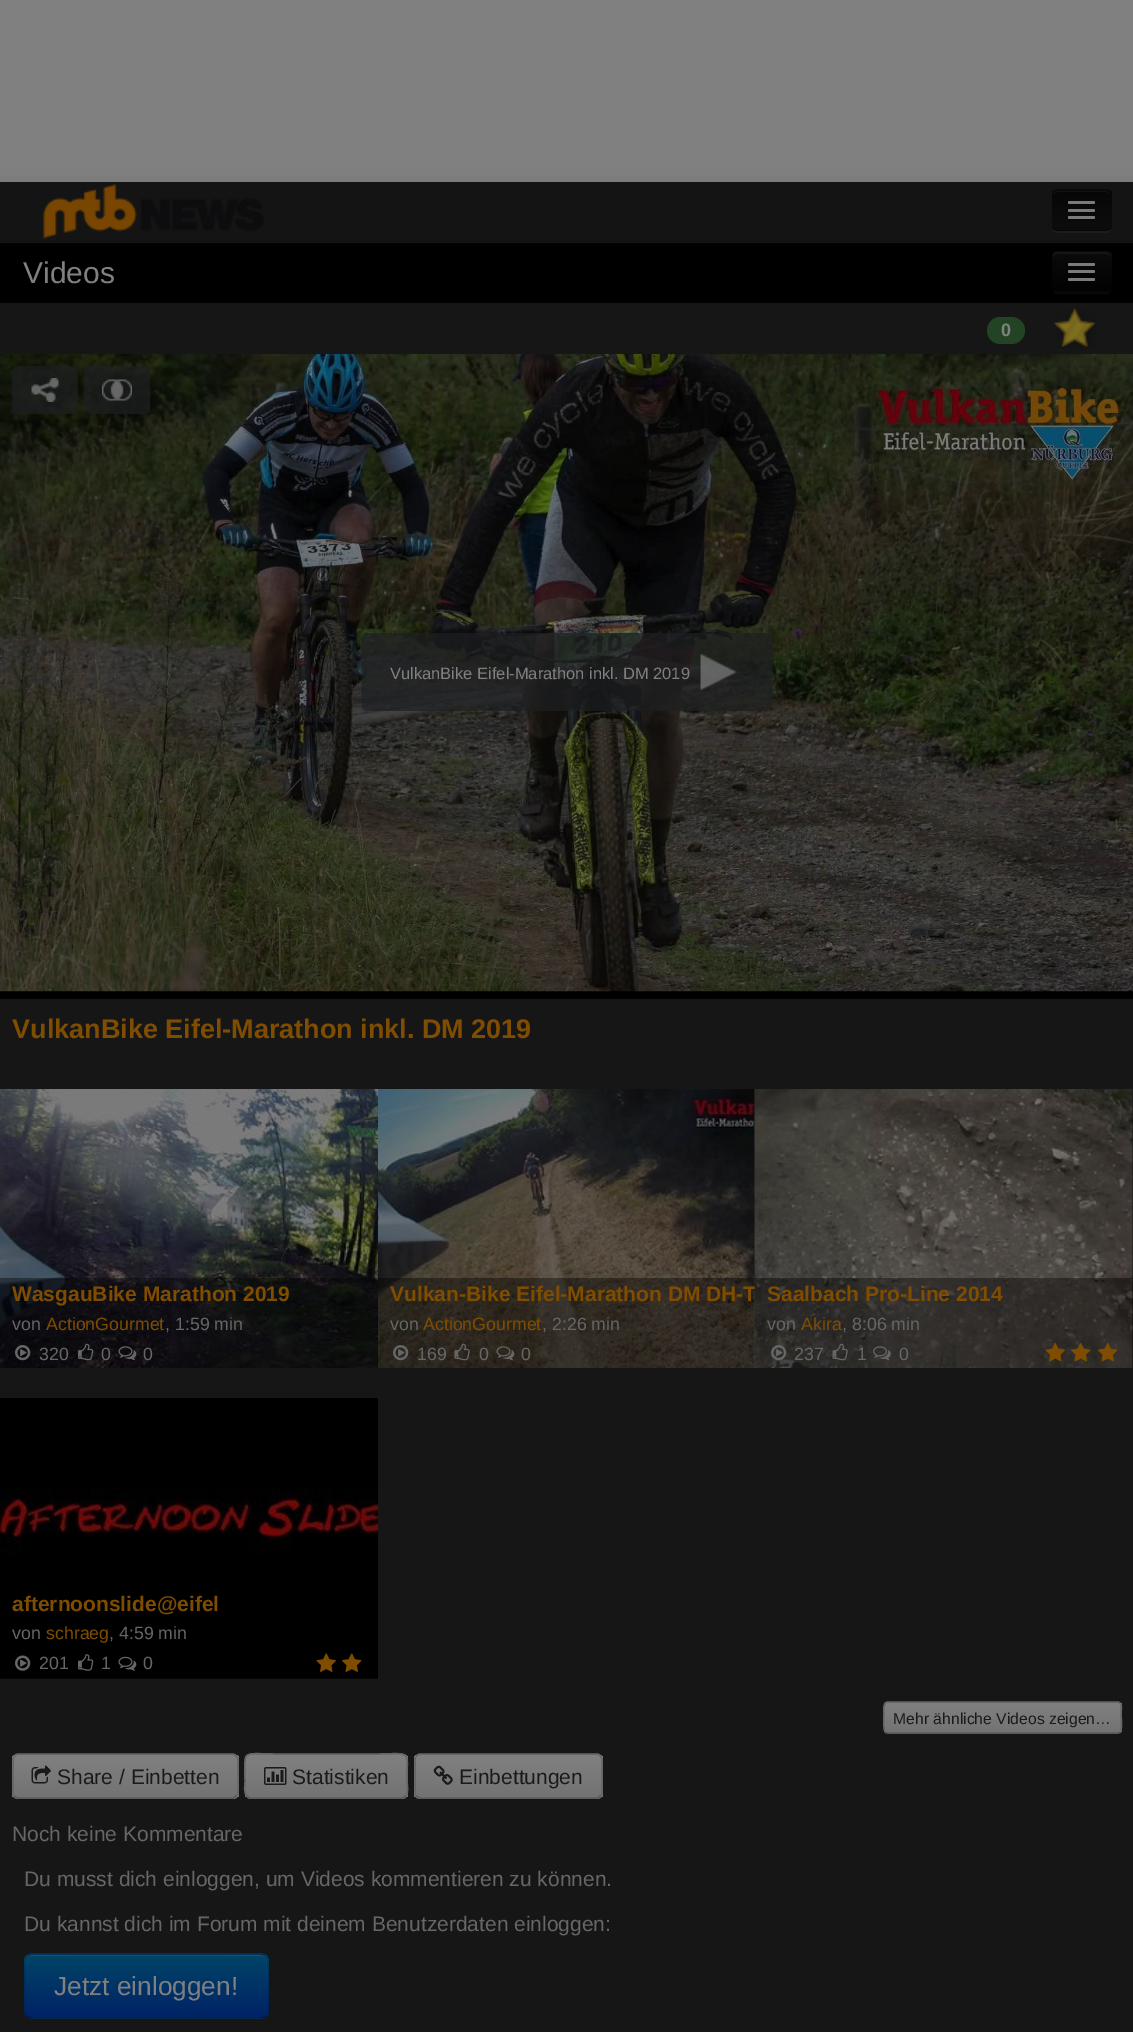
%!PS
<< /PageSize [1133 2032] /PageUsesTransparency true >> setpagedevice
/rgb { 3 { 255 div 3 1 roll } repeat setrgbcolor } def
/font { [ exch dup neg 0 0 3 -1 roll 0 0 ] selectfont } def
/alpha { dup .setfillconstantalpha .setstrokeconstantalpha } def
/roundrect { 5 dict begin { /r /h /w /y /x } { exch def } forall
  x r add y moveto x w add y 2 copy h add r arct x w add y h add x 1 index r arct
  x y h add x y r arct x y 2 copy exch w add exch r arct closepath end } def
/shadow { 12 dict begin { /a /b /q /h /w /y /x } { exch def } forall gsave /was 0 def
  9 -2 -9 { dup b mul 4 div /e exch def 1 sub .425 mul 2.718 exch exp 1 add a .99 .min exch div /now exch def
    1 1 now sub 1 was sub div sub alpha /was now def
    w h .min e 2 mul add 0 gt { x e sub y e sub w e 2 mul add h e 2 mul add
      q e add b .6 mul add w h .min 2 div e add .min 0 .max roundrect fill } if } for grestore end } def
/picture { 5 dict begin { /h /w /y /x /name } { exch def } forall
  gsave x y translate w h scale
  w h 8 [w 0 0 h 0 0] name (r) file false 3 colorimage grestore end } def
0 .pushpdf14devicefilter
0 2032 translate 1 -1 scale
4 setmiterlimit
128 128 128 rgb
0 0 1133 2032 rectfill
0 0 0 rgb
0 183 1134 60 0 7.5 0.1 shadow
20 20 20 rgb
0 182 1133 58 rectfill
18 18 18 rgb
0 240 1133 2 rectfill
(img/1.rgb) 43 184 221 55 picture
28 28 28 rgb
1052 227 moveto 1052 231 1055 233 1058 233 curveto 1106 233 lineto 1109 233 1112 230 1112 227 curveto 1112 197 lineto 1111 195 lineto 1112 220 lineto 1112 232 1109 231 1098 231 curveto 1066 231 lineto 1061 231 1054 233 1052 227 curveto closepath fill
10 10 10 rgb
1052 189 60 42 6 roundrect fill
gsave
1052 189 60 42 6 roundrect clip newpath
gsave 1052 191 moveto 1112 191 lineto 1112 230 lineto 1052 230 lineto closepath clip newpath
<< /ShadingType 2 /ColorSpace /DeviceRGB /Coords [1082 191 1082 230] /Extend [true true] /Function << /FunctionType 2 /Domain [0 1] /C0 [0.027 0.027 0.027] /C1 [0.051 0.051 0.051] /N 1 >> >> shfill grestore
grestore
19 19 19 rgb
1058 192 moveto 1106 192 lineto 1108 192 1110 194 1110 196 curveto 1110 193 1108 191 1105 191 curveto 1058 191 lineto 1055 191 1053 193 1053 196 curveto 1053 194 1055 192 1058 192 curveto closepath fill
0.25 alpha
0 0 0 rgb
1.5 setlinewidth
1109 228.5 moveto 1108 229.5 1107 230 1105.5 230 curveto 1057.5 230 lineto 1056 230 1055 229.5 1054 228.5 curveto stroke
1 alpha
123 123 123 rgb
1068 201 27 3 1.5 roundrect fill
1068 209 27 3 1.5 roundrect fill
9 9 9 rgb
1068.5 218.5 moveto 1068 220 lineto 1068.5 222 1073 221 1073.5 221 curveto 1089.5 221 lineto 1090 221 1094.5 222 1095 220 curveto 1094.5 218.5 lineto 1093.5 219 lineto 1069.5 219 lineto closepath fill
123 123 123 rgb
1068 216 27 3 1.5 roundrect fill
22 22 22 rgb
0 242 1133 1790 rectfill
0 0 0 rgb
0 243 1133 60 rectfill
10 10 10 rgb
1052 289 moveto 1053 292 1055 294 1058 294 curveto 1106 294 lineto 1109 294 1112 291 1112 288 curveto 1112 258 lineto 1111 255 lineto 1111 288 lineto 1110 290 lineto 1110 291 1108 292 1107 292 curveto 1066 292 lineto 1061 292 1054 294 1052 289 curveto closepath fill
7 7 7 rgb
1052 251 60 42 6 roundrect fill
gsave
1052 251 60 42 6 roundrect clip newpath
gsave 1052 252 moveto 1112 252 lineto 1112 291 lineto 1052 291 lineto closepath clip newpath
<< /ShadingType 2 /ColorSpace /DeviceRGB /Coords [1082 252 1082 291] /Extend [true true] /Function << /FunctionType 2 /Domain [0 1] /C0 [0.043 0.043 0.043] /C1 [0.008 0.008 0.008] /N 1 >> >> shfill grestore
grestore
22 22 22 rgb
1058 254 moveto 1106 254 lineto 1108 254 1110 256 1110 258 curveto 1110 250 1103 252 1097 252 curveto 1066 252 lineto 1060 252 1053 250 1053 258 curveto 1053 256 1055 254 1058 254 curveto closepath fill
123 123 123 rgb
1068 263 27 3 1.5 roundrect fill
1068 270 27 3 1.5 roundrect fill
1068 278 27 3 1.5 roundrect fill
35 68 36 rgb
987 317 38 27 13.5 roundrect fill
(img/2.rgb) 1054 308 42 41 picture
0 0 0 rgb
0 991 1133 8 rectfill
(img/7.rgb) 0 354 1133 638 picture
(img/3.rgb) 12 366 66 48 picture
(img/4.rgb) 31 378 28 24 picture
(img/5.rgb) 84 366 66 48 picture
(img/6.rgb) 102 379 30 22 picture
(img/8.rgb) 361 633 412 78 picture
(img/9.rgb) 700 654 37 36 picture
(img/10.rgb) 0 1089 378 279 picture
0.4 alpha
0 1278 378 90 rectfill
1 alpha
(img/11.rgb) 15 1345 16 16 picture
(img/12.rgb) 78 1343 16 18 picture
(img/13.rgb) 118 1346 19 15 picture
(img/14.rgb) 378 1089 377 279 picture
0.4 alpha
378 1278 377 90 rectfill
1 alpha
(img/15.rgb) 393 1345 16 16 picture
(img/16.rgb) 454 1343 16 18 picture
(img/17.rgb) 496 1346 19 15 picture
(img/25.rgb) 0 1398 378 281 picture
0.4 alpha
0 1678 378 1 rectfill
1 alpha
(img/26.rgb) 15 1655 16 16 picture
(img/27.rgb) 78 1654 16 17 picture
(img/28.rgb) 118 1656 19 15 picture
(img/29.rgb) 316 1653 20 19 picture
(img/30.rgb) 342 1653 20 19 picture
gsave
884 1701 238 33 5 roundrect clip newpath
gsave 884 1703 moveto 1122 1703 lineto 1122 1733 lineto 884 1733 lineto closepath clip newpath
<< /ShadingType 2 /ColorSpace /DeviceRGB /Coords [1003 1703 1003 1733] /Extend [true true] /Function << /FunctionType 2 /Domain [0 1] /C0 [0.502 0.502 0.502] /C1 [0.451 0.451 0.451] /N 1 >> >> shfill grestore
grestore
90 90 90 rgb
1120 1732 moveto 1119.5 1733 1118.5 1733 1117.5 1733 curveto 888 1733 lineto 887 1733 886 1733 885.5 1732 curveto stroke
102 102 102 rgb
885.5 1732 moveto 883 1730 884 1717 884 1713.5 curveto 884 1710.5 882.5 1702 888 1702 curveto 1117.5 1702 lineto 1123 1702 1121 1710.5 1121 1713.5 curveto 1121 1717 1122.5 1730 1120 1732 curveto stroke
123 123 123 rgb
12 1754 227 45 6 roundrect fill
gsave
12 1754 227 45 6 roundrect clip newpath
gsave 12 1755 moveto 239 1755 lineto 239 1797 lineto 12 1797 lineto closepath clip newpath
<< /ShadingType 2 /ColorSpace /DeviceRGB /Coords [125 1755 125 1797] /Extend [true true] /Function << /FunctionType 2 /Domain [0 1] /C0 [0.502 0.502 0.502] /C1 [0.451 0.451 0.451] /N 1 >> >> shfill grestore
grestore
90 90 90 rgb
236 1796 moveto 235 1797 234 1798 232.5 1798 curveto 18 1798 lineto 16.5 1798 15.5 1797 14.5 1796 curveto stroke
102 102 102 rgb
14.5 1796 moveto 13.5 1795 13 1794 13 1792.5 curveto 13 1759.5 lineto 13 1758 13.5 1757 14.5 1756 curveto 15.5 1755 16.5 1754 18 1754 curveto 232.5 1754 lineto 234 1754 235 1755 236 1756 curveto 237 1757 238 1758 238 1759.5 curveto 238 1792.5 lineto 238 1794 237 1795 236 1796 curveto stroke
(img/31.rgb) 31 1765 20 19 picture
123 123 123 rgb
245 1754 163 45 6 roundrect fill
gsave
245 1754 163 45 6 roundrect clip newpath
gsave 245 1755 moveto 408 1755 lineto 408 1797 lineto 245 1797 lineto closepath clip newpath
<< /ShadingType 2 /ColorSpace /DeviceRGB /Coords [326 1755 326 1797] /Extend [true true] /Function << /FunctionType 2 /Domain [0 1] /C0 [0.502 0.502 0.502] /C1 [0.451 0.451 0.451] /N 1 >> >> shfill grestore
grestore
90 90 90 rgb
405.5 1796 moveto 404.5 1797 403.5 1798 402 1798 curveto 250.5 1798 lineto 249 1798 248 1797 247 1796 curveto stroke
102 102 102 rgb
247 1796 moveto 243.5 1793 245 1785 245 1781.5 curveto 245 1748.5 240 1754 276 1754 curveto 377 1754 lineto 412.5 1754 407 1748.5 407 1781.5 curveto 407 1785 409 1793 405.5 1796 curveto stroke
(img/32.rgb) 264 1767 23 18 picture
123 123 123 rgb
414 1754 189 45 6 roundrect fill
gsave
414 1754 189 45 6 roundrect clip newpath
gsave 414 1755 moveto 603 1755 lineto 603 1797 lineto 414 1797 lineto closepath clip newpath
<< /ShadingType 2 /ColorSpace /DeviceRGB /Coords [509 1755 509 1797] /Extend [true true] /Function << /FunctionType 2 /Domain [0 1] /C0 [0.502 0.502 0.502] /C1 [0.451 0.451 0.451] /N 1 >> >> shfill grestore
grestore
90 90 90 rgb
600.5 1796 moveto 599.5 1797 598.5 1798 597 1798 curveto 420 1798 lineto 418.5 1798 417.5 1797 416.5 1796 curveto stroke
102 102 102 rgb
416.5 1796 moveto 415.5 1795 415 1794 415 1792.5 curveto 415 1759.5 lineto 415 1758 415.5 1757 416.5 1756 curveto 417.5 1755 418.5 1754 420 1754 curveto 597 1754 lineto 598.5 1754 599.5 1755 600.5 1756 curveto 601.5 1757 602 1758 602 1759.5 curveto 602 1792.5 lineto 602 1794 601.5 1795 600.5 1796 curveto stroke
(img/33.rgb) 433 1765 20 20 picture
0 55 102 rgb
24 1953 245 66 9 roundrect fill
gsave
24 1953 245 66 9 roundrect clip newpath
gsave 24 1955 moveto 269 1955 lineto 269 2018 lineto 24 2018 lineto closepath clip newpath
<< /ShadingType 2 /ColorSpace /DeviceRGB /Coords [146 1955 146 2018] /Extend [true true] /Function << /FunctionType 2 /Domain [0 1] /C0 [0 0.267 0.4] /C1 [0 0.133 0.4] /N 1 >> >> shfill grestore
grestore
26 80 107 rgb
33 1956 moveto 260 1956 lineto 264 1956 267 1959 267 1964 curveto 267 1963 lineto 267 1959 263 1955 259 1955 curveto 34 1955 lineto 30 1955 26 1959 26 1963 curveto 26 1964 lineto 26 1959 29 1956 33 1956 curveto closepath fill
0.25 alpha
0 0 0 rgb
265.5 2016 moveto 264 2017.5 261.5 2018 259.5 2018 curveto 33 2018 lineto 31 2018 28.5 2017.5 27 2016 curveto stroke
0.1 alpha
27 2016 moveto 23.5 2012.5 25 2006.5 25 2002 curveto 25 1994 lineto 25 1945 17.5 1954 71 1954 curveto 222 1954 lineto 275 1954 268 1945 268 1994 curveto 268 2002 lineto 268 2006.5 269 2012.5 265.5 2016 curveto stroke
/LiberationSans-Regular 30 font
1 alpha
128 128 128 rgb
23 283 moveto (Videos) show
/LiberationSans-Bold 18 font
1001 336 moveto (0) show
/LiberationSans-Regular 16.5 font
390 679 moveto (VulkanBike Eifel-Marathon inkl. DM 2019) show
/LiberationSans-Bold 27 font
128 77 0 rgb
12 1038 moveto (VulkanBike Eifel-Marathon inkl. DM 2019) show
/LiberationSans-Bold 21 font
12 1301 moveto (WasgauBike Marathon 2019) show
/LiberationSans-Regular 17.75 font
102 102 102 rgb
12 1330 moveto (von) show
128 77 0 rgb
46 1330 moveto (ActionGourmet) show
102 102 102 rgb
[
  [(, 1:59 min) 165 1330]
  [(320) 39 1360]
  [(0) 101 1360]
  [(0) 143 1360]
] { aload pop moveto show } forall
/LiberationSans-Bold 21 font
128 77 0 rgb
390 1301 moveto (Vulkan-Bike Eifel-Marathon DM DH-T) show
/LiberationSans-Regular 17.75 font
102 102 102 rgb
390 1330 moveto (von) show
128 77 0 rgb
423 1330 moveto (ActionGourmet) show
102 102 102 rgb
[
  [(, 2:26 min) 542 1330]
  [(169) 417 1360]
  [(0) 479 1360]
  [(0) 521 1360]
] { aload pop moveto show } forall
(img/18.rgb) 754 1089 379 279 picture
0.4 alpha
0 0 0 rgb
755 1278 378 90 rectfill
/LiberationSans-Bold 21 font
1 alpha
128 77 0 rgb
767 1301 moveto (Saalbach Pro-Line 2014) show
/LiberationSans-Regular 17.75 font
102 102 102 rgb
767 1330 moveto (von) show
128 77 0 rgb
801 1330 moveto (Akira) show
102 102 102 rgb
842 1330 moveto (, 8:06 min) show
(img/19.rgb) 771 1345 16 16 picture
794 1360 moveto (237) show
(img/20.rgb) 832 1343 16 18 picture
857 1360 moveto (1) show
(img/21.rgb) 873 1346 18 15 picture
899 1360 moveto (0) show
(img/22.rgb) 1045 1342 20 20 picture
(img/23.rgb) 1071 1342 20 20 picture
(img/24.rgb) 1098 1342 20 20 picture
/LiberationSans-Bold 21 font
128 77 0 rgb
12 1611 moveto (afternoonslide@eifel) show
/LiberationSans-Regular 17.75 font
102 102 102 rgb
12 1639 moveto (von) show
128 77 0 rgb
46 1639 moveto (schraeg) show
102 102 102 rgb
[
  [(, 4:59 min) 109 1639]
  [(201) 39 1669]
  [(1) 101 1669]
  [(0) 143 1669]
] { aload pop moveto show } forall
/LiberationSans-Regular 15.75 font
26 26 26 rgb
893 1724 moveto (Mehr ähnliche Videos zeigen…) show
/LiberationSans-Regular 21 font
[
  [(Share / Einbetten) 57 1784]
  [(Statistiken) 292 1784]
  [(Einbettungen) 459 1784]
] { aload pop moveto show } forall
102 102 102 rgb
[
  [(Noch keine Kommentare) 12 1841]
  [(Du musst dich einloggen, um Videos kommentieren zu können.) 24 1886]
  [(Du kannst dich im Forum mit deinem Benutzerdaten einloggen:) 24 1931]
] { aload pop moveto show } forall
/LiberationSans-Regular 26.25 font
128 128 128 rgb
54 1995 moveto (Jetzt einloggen!) show
.poppdf14devicefilter showpage
